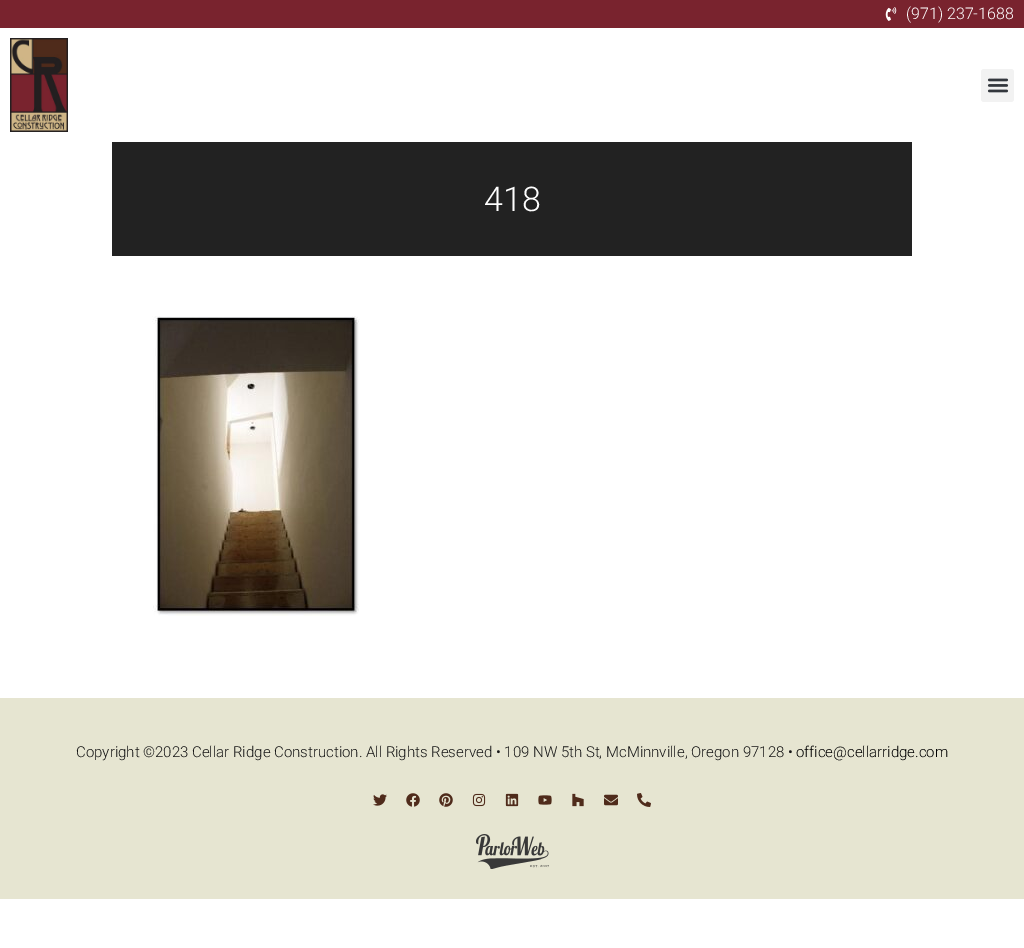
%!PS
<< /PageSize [1024 948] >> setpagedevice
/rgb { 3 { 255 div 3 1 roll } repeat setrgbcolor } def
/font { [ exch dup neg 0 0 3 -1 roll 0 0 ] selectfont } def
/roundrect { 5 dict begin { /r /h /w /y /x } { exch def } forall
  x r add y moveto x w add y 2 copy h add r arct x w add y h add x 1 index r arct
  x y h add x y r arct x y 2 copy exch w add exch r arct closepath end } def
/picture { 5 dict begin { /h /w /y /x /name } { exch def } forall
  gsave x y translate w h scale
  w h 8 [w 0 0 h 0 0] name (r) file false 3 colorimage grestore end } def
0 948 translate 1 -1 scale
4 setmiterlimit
255 255 255 rgb
0 0 1024 948 rectfill
121 35 46 rgb
0 0 1024 28 rectfill
(img/1.rgb) 885 7 12 14 picture
(img/2.rgb) 10 38 58 94 picture
242 242 242 rgb
981 69 33 33 3 roundrect fill
(img/3.rgb) 987 78 22 15 picture
34 34 34 rgb
112 142 800 114 rectfill
(img/4.rgb) 152 316 208 300 picture
230 229 209 rgb
0 698 1024 201 rectfill
(img/5.rgb) 373 794 14 12 picture
(img/6.rgb) 406 793 14 14 picture
(img/7.rgb) 439 793 14 14 picture
(img/8.rgb) 472 793 14 14 picture
(img/9.rgb) 505 793 14 14 picture
(img/10.rgb) 538 795 14 10 picture
(img/11.rgb) 572 793 12 14 picture
(img/12.rgb) 604 794 14 12 picture
(img/13.rgb) 637 793 14 14 picture
(img/14.rgb) 476 834 73 35 picture
/Roboto-Light 16 font
255 255 255 rgb
906 19 moveto (\(971\) 237-1688) show
/Roboto-Light 34 font
484 211 moveto (418) show
/Roboto-Light 15 font
22 22 22 rgb
76 757 moveto (Copyright ©2023 Cellar Ridge Construction. All Rights Reserved • 109 NW 5th St, McMinnville, Oregon 97128 •) show
0 0 0 rgb
796 757 moveto (office@cellarridge.com) show
showpage
